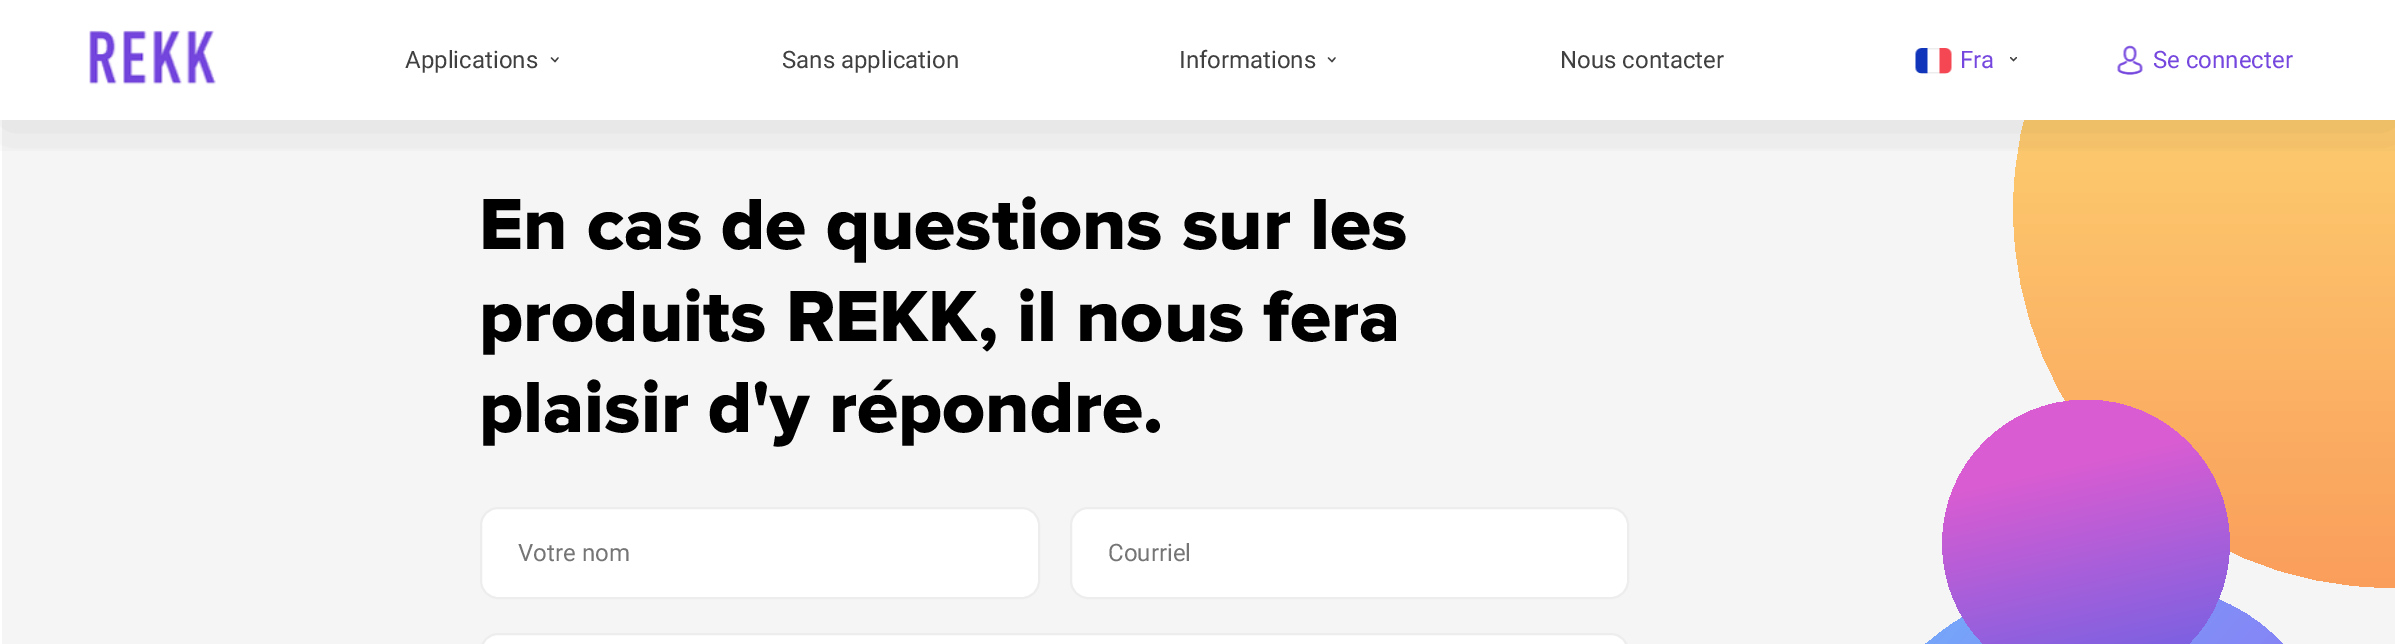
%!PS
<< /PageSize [2395 644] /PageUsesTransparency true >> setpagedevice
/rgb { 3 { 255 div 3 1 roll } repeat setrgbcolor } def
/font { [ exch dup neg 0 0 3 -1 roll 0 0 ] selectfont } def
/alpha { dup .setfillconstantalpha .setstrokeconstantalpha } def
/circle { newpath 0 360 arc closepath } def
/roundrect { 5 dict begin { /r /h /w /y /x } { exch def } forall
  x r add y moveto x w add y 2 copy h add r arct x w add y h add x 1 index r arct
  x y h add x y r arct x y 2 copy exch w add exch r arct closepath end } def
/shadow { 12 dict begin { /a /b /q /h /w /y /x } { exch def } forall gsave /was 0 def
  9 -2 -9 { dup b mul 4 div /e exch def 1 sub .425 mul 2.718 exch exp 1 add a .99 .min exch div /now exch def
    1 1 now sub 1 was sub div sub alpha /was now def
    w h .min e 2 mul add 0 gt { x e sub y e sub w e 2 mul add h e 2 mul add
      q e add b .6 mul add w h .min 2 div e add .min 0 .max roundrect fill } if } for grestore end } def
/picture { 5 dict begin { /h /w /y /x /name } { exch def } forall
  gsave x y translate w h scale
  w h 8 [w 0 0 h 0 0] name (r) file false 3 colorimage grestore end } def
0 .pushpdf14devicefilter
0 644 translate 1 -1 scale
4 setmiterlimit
255 255 255 rgb
0 0 2395 644 rectfill
245 245 245 rgb
2 120 2393 524 rectfill
gsave 1573 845 moveto 1576 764 1648 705 1728 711 curveto 1780 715 1854 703 1936 636 curveto 2093 508 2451 592 2275 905 curveto 2128 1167 1565 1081 1573 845 curveto closepath eoclip newpath
<< /ShadingType 2 /ColorSpace /DeviceRGB /Coords [1738 612 2188 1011] /Extend [true true] /Function << /FunctionType 2 /Domain [0 1] /C0 [0.431 0.722 0.988] /C1 [0.561 0.443 0.957] /N 1 >> >> shfill grestore
gsave
1497 120 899 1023 rectclip
gsave 2391.5 209.5 378 circle clip newpath
<< /ShadingType 2 /ColorSpace /DeviceRGB /Coords [2392 -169 2392 588] /Extend [true true] /Function << /FunctionType 2 /Domain [0 1] /C0 [1 0.902 0.478] /C1 [0.98 0.62 0.361] /N 1 >> >> shfill grestore
grestore
gsave
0 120 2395 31 rectclip
0 0 0 rgb
0 6 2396 120 0 30 0.1 shadow
grestore
(img/1.rgb) 89 30 127 55 picture
64 64 64 rgb
1.3 setlinewidth
1 setlinecap
551.5 58 moveto 555 61.5 lineto 558 58 lineto stroke
1328.5 58 moveto 1332 61.5 lineto 1335 58 lineto stroke
(img/2.rgb) 1915 48 37 26 picture
1.1 setlinewidth
2010.5 57.5 moveto 2013.5 60.5 lineto 2016.5 57.5 lineto stroke
(img/3.rgb) 2117 45 26 30 picture
gsave 2086 543.5 143.5 circle clip newpath
<< /ShadingType 2 /ColorSpace /DeviceRGB /Coords [2030 475 2074 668] /Extend [true true] /Function << /FunctionType 2 /Domain [0 1] /C0 [0.851 0.361 0.824] /C1 [0.494 0.38 0.882] /N 1 >> >> shfill grestore
255 255 255 rgb
481 508 558 90 17 roundrect gsave fill grestore
237 237 237 rgb
2 setlinewidth
0 setlinecap
stroke
255 255 255 rgb
1071 508 557 90 17 roundrect gsave fill grestore
237 237 237 rgb
stroke
255 255 255 rgb
481 634 1147 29 17 roundrect gsave fill grestore
237 237 237 rgb
stroke
/Roboto-Regular 24 font
64 64 64 rgb
[
  [(Applications) 405 68]
  [(Sans application) 782 68]
  [(Informations) 1179 68]
  [(Nous contacter) 1560 68]
] { aload pop moveto show } forall
117 71 222 rgb
1960 68 moveto (Fra) show
2153 68 moveto (Se connecter) show
/ProximaNova-ExtraBold 75 font
0 0 0 rgb
[
  [(En cas de questions sur les) 479 249]
  [(produits REKK, il nous fera) 479 341]
  [(plaisir d'y répondre.) 479 432]
] { aload pop moveto show } forall
/Roboto-Regular 24 font
117 117 117 rgb
518 561 moveto (Votre nom) show
1108 561 moveto (Courriel) show
.poppdf14devicefilter showpage
